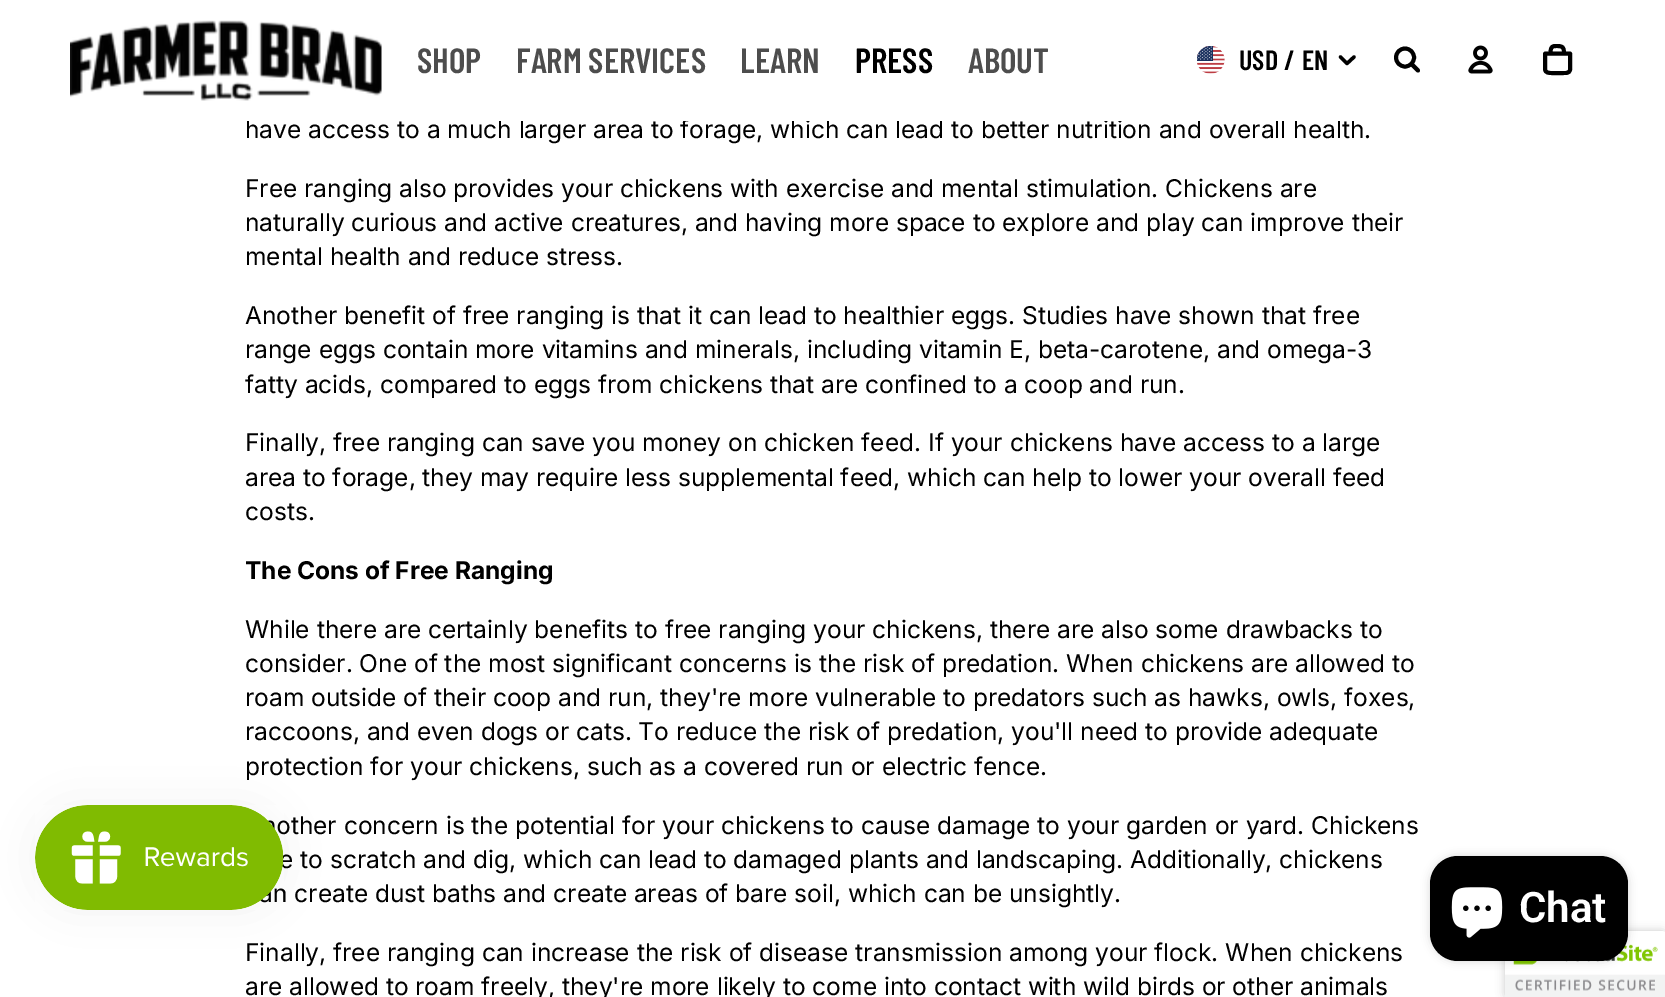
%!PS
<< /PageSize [1665 997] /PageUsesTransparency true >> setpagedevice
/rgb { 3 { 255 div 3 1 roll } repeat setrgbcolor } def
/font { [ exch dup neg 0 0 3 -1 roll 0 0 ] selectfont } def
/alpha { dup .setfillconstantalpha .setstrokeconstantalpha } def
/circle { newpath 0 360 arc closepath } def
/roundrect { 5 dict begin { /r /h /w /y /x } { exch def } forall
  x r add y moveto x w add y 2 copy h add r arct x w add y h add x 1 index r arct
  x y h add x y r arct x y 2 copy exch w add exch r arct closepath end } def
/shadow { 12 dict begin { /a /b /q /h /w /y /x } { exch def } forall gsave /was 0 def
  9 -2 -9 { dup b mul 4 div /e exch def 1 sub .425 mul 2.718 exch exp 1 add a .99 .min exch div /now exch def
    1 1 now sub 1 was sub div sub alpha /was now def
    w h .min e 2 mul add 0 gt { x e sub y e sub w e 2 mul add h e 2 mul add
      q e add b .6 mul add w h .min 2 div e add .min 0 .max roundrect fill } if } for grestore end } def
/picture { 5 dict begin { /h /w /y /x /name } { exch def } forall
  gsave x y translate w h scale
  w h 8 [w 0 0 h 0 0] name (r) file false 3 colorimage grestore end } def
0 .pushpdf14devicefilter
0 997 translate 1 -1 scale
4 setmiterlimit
255 255 255 rgb
0 0 1665 997 rectfill
(img/1.rgb) 70 20 312 81 picture
(img/2.rgb) 1197 46 28 28 picture
0 0 0 rgb
3.4 setlinewidth
1 setlinecap
1 setlinejoin
1354 57 moveto 1347 63.5 lineto 1340.5 57 lineto stroke
3.9 setlinewidth
0 setlinecap
0 setlinejoin
1405 57.5 9 circle stroke
1 setlinecap
1 setlinejoin
1412 64.5 moveto 1418 70.5 lineto stroke
(img/3.rgb) 1468 45 25 29 picture
1545 53.5 moveto 1570 53.5 lineto 1570 70 lineto 1569 73.5 1566 73 1563 73 curveto 1552 73 lineto 1549 73 1545 73 1545 69 curveto closepath 1555 46 moveto 1562.5 46 1564 46 1564 53.5 curveto 1550.5 53.5 lineto 1550.5 50 1550.5 46 1555 46 curveto stroke
35 805 249 105 52.5 22 0.05 shadow
1505 931 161 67 4 4.5 0.2 shadow
255 255 255 rgb
1663 931 2 1 rectfill
(img/6.rgb) 1505 931 160 66 picture
0 0 0 rgb
1430 856 198 105 28 4.5 0.15 shadow
1430 856 198 105 28 roundrect fill
(img/5.rgb) 1451 887 52 51 picture
/BarlowCondensed-SemiBold 35 font
77 77 77 rgb
[
  [(SHOP) 417 73]
  [(FARM SERVICES) 516 73]
  [(LEARN) 740 73]
] { aload pop moveto show } forall
0 0 0 rgb
855 73 moveto (PRESS) show
77 77 77 rgb
968 73 moveto (ABOUT) show
/BarlowCondensed-SemiBold 28 font
0 0 0 rgb
[
  [(USD) 1239 70]
  [(/) 1284 70]
  [(EN) 1302 70]
] { aload pop moveto show } forall
/Inter-Regular 24.5 font
245 138 moveto (have access to a much larger area to forage, which can lead to better nutrition and overall health.) show
255 255 255 rgb
246 119 1108 2 rectfill
0 0 0 rgb
[
  [(Free ranging also provides your chickens with exercise and mental stimulation. Chickens are) 245 197]
  [(naturally curious and active creatures, and having more space to explore and play can improve their) 245 231]
  [(mental health and reduce stress.) 245 265]
  [(Another benefit of free ranging is that it can lead to healthier eggs. Studies have shown that free) 245 324]
  [(range eggs contain more vitamins and minerals, including vitamin E, beta-carotene, and omega-3) 245 358]
  [(fatty acids, compared to eggs from chickens that are confined to a coop and run.) 245 393]
  [(Finally, free ranging can save you money on chicken feed. If your chickens have access to a large) 245 451]
  [(area to forage, they may require less supplemental feed, which can help to lower your overall feed) 245 486]
  [(costs.) 245 520]
] { aload pop moveto show } forall
/Inter-Bold 24.5 font
245 579 moveto (The Cons of Free Ranging) show
/Inter-Regular 24.5 font
[
  [(While there are certainly benefits to free ranging your chickens, there are also some drawbacks to) 245 638]
  [(consider. One of the most significant concerns is the risk of predation. When chickens are allowed to) 245 672]
  [(roam outside of their coop and run, they're more vulnerable to predators such as hawks, owls, foxes,) 245 706]
  [(raccoons, and even dogs or cats. To reduce the risk of predation, you'll need to provide adequate) 245 740]
  [(protection for your chickens, such as a covered run or electric fence.) 245 775]
  [(other concern is the potential for your chickens to cause damage to your garden or yard. Chickens) 276 834]
  [(e to scratch and dig, which can lead to damaged plants and landscaping. Additionally, chickens) 279 868]
  [(n create dust baths and create areas of bare soil, which can be unsightly.) 273 902]
] { aload pop moveto show } forall
(img/4.rgb) 35 805 249 105 picture
245 961 moveto (Finally, free ranging can increase the risk of disease transmission among your flock. When chickens) show
245 995 moveto (are allowed to roam freely, they're more likely to come into contact with wild birds or other animals) show
/Roboto-SemiBold 42 font
255 255 255 rgb
1519 922 moveto (Chat) show
.poppdf14devicefilter showpage
